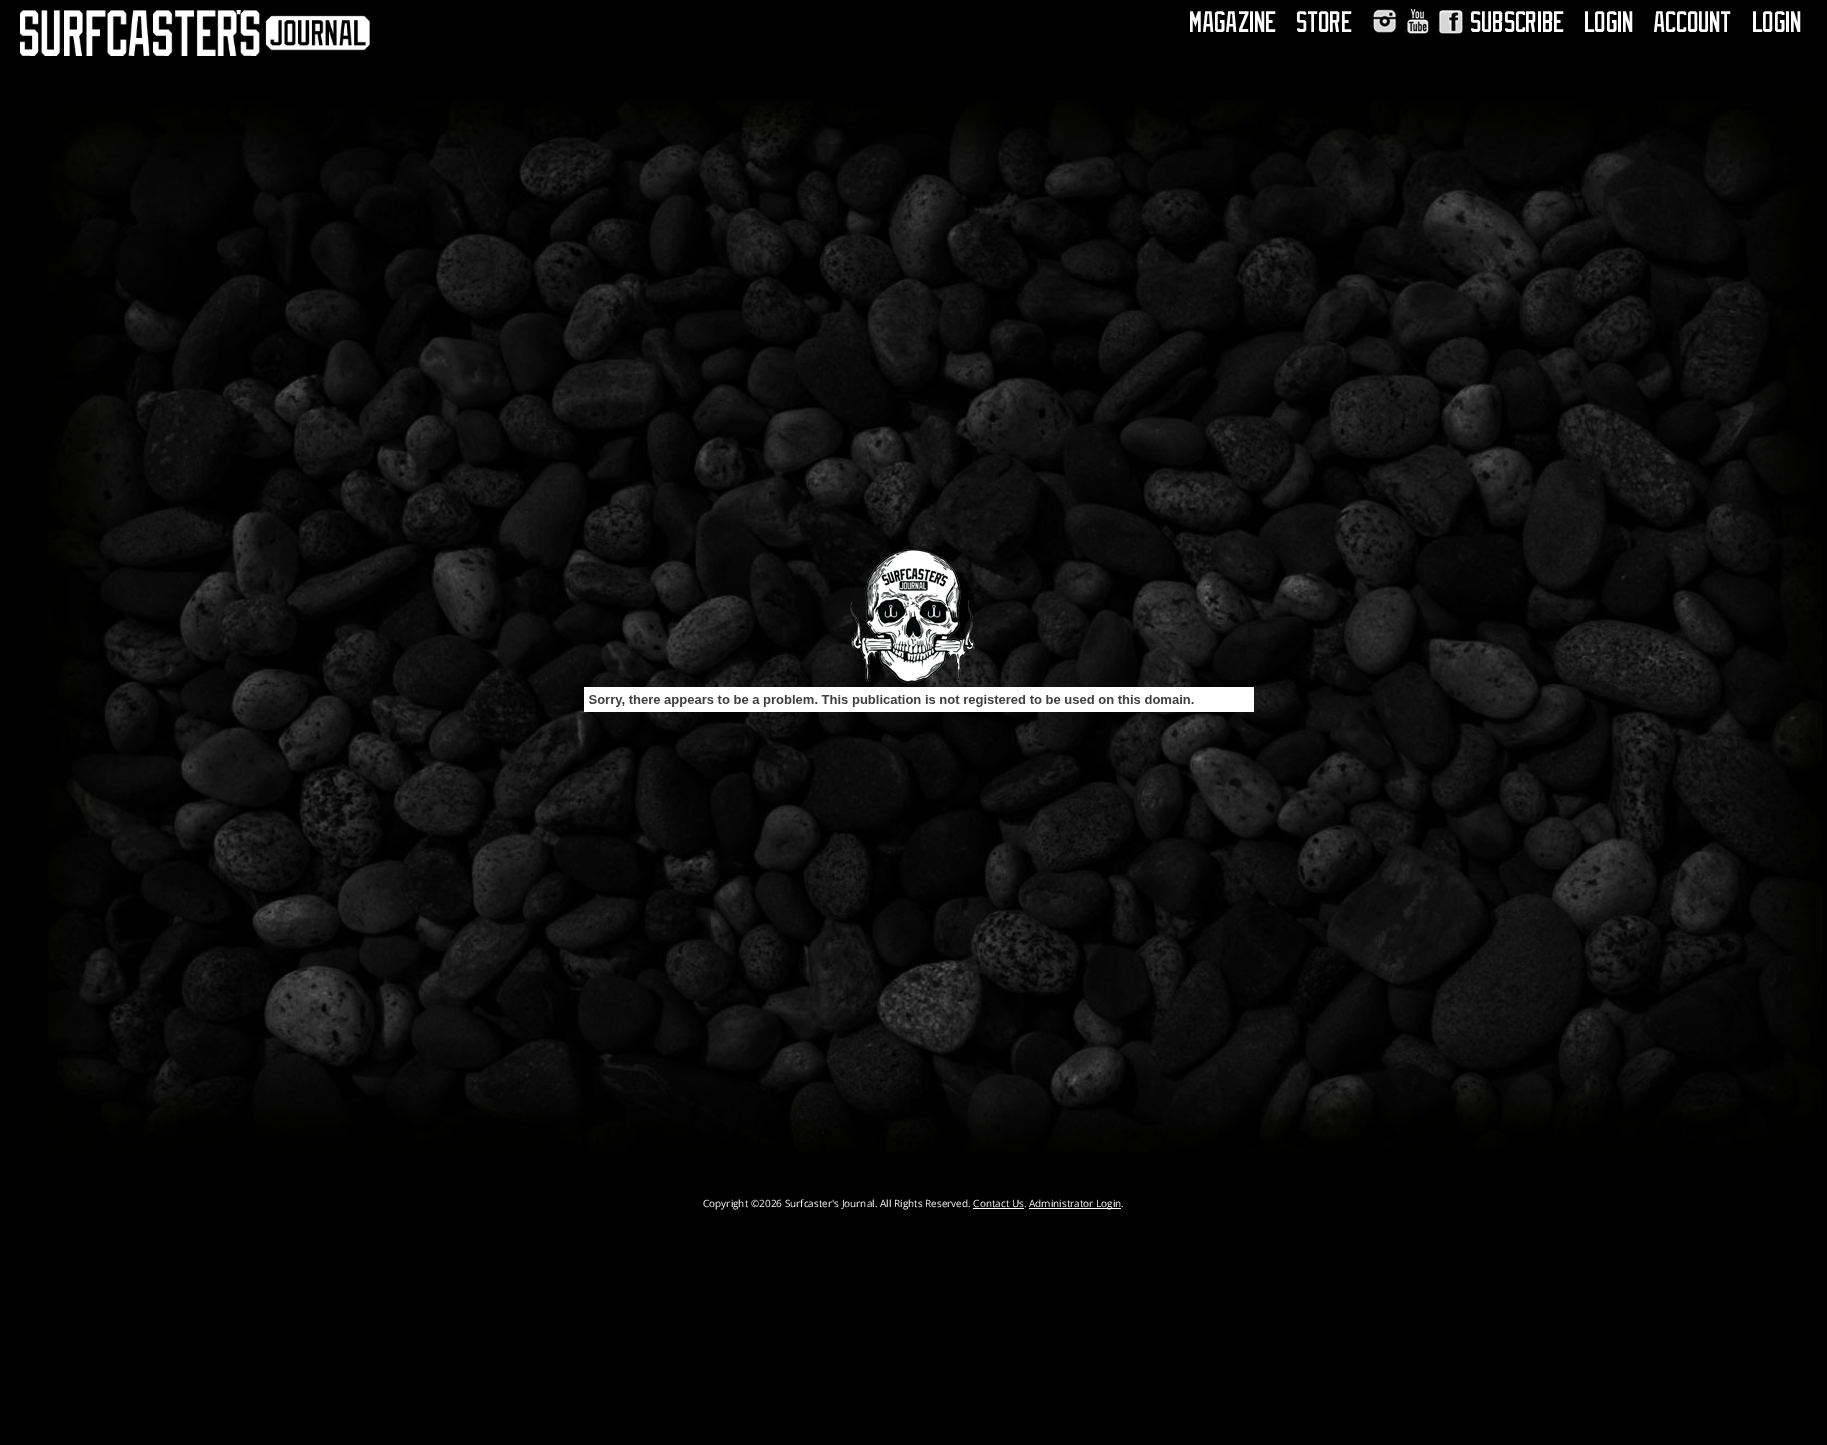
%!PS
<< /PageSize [1827 1445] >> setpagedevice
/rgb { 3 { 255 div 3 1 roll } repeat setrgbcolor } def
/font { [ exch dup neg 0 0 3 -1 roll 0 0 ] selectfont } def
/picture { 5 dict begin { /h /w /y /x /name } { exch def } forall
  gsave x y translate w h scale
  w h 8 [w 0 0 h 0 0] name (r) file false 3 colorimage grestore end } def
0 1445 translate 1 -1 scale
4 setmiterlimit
0 0 0 rgb
0 0 1827 1445 rectfill
(img/1.rgb) 20 10 350 46 picture
(img/2.rgb) 1373 9 24 24 picture
(img/3.rgb) 1405 9 25 25 picture
(img/4.rgb) 1438 9 25 25 picture
(img/5.rgb) 48 100 1775 1052 picture
255 255 255 rgb
1029 1208 92 1 rectfill
973 1208 51 1 rectfill
/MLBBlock-Regular 26 font
[
  [(Magazine) 1190 32]
  [(Store) 1297 32]
  [(Subscribe) 1471 32]
  [(Login) 1585 32]
  [(Account) 1654 32]
  [(Login) 1753 32]
] { aload pop moveto show } forall
/OpenSans-Regular 10 font
703 1207 moveto (Copyright ©2026 Surfcaster's Journal. All Rights Reserved. Contact Us.) show
1029 1207 moveto (Administrator Login.) show
showpage
